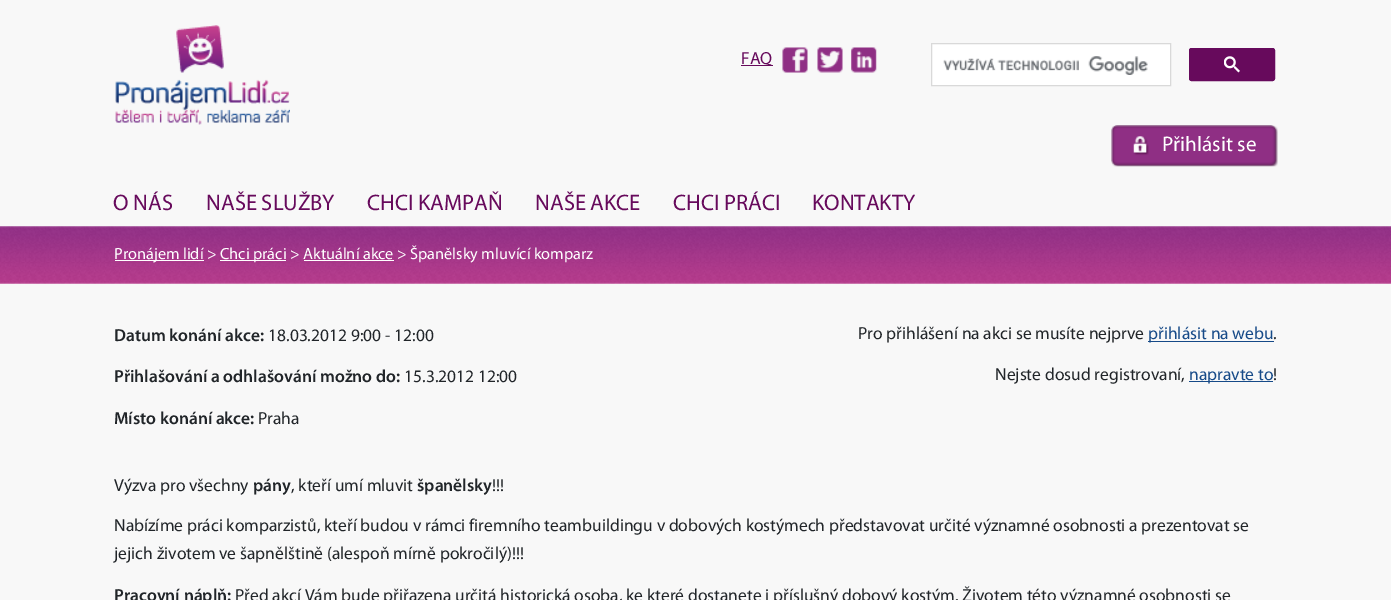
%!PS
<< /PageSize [1391 600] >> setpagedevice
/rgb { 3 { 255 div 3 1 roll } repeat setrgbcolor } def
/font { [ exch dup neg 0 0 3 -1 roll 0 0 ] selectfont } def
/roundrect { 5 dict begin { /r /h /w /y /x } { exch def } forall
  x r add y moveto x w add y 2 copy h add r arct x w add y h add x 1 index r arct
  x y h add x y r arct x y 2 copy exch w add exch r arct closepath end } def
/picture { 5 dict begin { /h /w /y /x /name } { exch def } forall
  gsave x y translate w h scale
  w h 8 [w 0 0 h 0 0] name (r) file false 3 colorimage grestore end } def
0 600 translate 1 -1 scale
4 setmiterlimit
248 248 248 rgb
0 0 1391 600 rectfill
(img/1.rgb) 115 25 175 100 picture
103 10 92 rgb
741 65 32 1 rectfill
(img/2.rgb) 782 47 26 26 picture
(img/3.rgb) 817 47 26 26 picture
(img/4.rgb) 851 47 26 26 picture
255 255 255 rgb
931.5 43.5 moveto 1170.5 43.5 lineto 1170.5 85.5 lineto 931.5 85.5 lineto closepath gsave fill grestore
217 217 217 rgb
stroke
(img/5.rgb) 943 56 205 19 picture
103 10 92 rgb
1189.5 48.5 85 32 2 roundrect gsave fill grestore
103 10 93 rgb
stroke
(img/6.rgb) 1224 56 16 17 picture
(img/7.rgb) 1111 125 167 42 picture
(img/8.rgb) 0 226 1391 58 picture
[
  [115 260 89 1 255 255 255]
  [220 260 66 1 255 255 255]
  [304 260 90 1 255 255 255]
  [1148 341 126 1 22 74 136]
  [1189 381 84 1 22 74 136]
] { aload pop rgb rectfill } forall
/Myriad-Regular 17.5 font
103 10 92 rgb
741 64 moveto (FAQ) show
/Myriad-Regular 21.25 font
255 255 255 rgb
1162 151 moveto (Přihlásit se) show
/Myriad-Regular 22.5 font
103 10 92 rgb
[
  [(O NÁS) 113 210]
  [(NAŠE SLUŽBY) 206 210]
  [(CHCI KAMPAŇ) 367 210]
  [(NAŠE AKCE) 535 210]
  [(CHCI PRÁCI) 673 210]
  [(KONTAKTY) 812 210]
] { aload pop moveto show } forall
/Myriad-Regular 16.25 font
255 255 255 rgb
114 259 moveto (Pronájem lidí >) show
220 259 moveto (Chci práci > Aktuální akce > Španělsky mluvící komparz) show
/Myriad-SemiBold 17.5 font
33 37 41 rgb
114 341 moveto (Datum konání akce:) show
/Myriad-Regular 17.5 font
268 341 moveto (18.03.2012 9:00 - 12:00) show
/Myriad-SemiBold 17.5 font
114 382 moveto (Přihlašování a odhlašování možno do:) show
/Myriad-Regular 17.5 font
404 382 moveto (15.3.2012 12:00) show
/Myriad-SemiBold 17.5 font
114 424 moveto (Místo konání akce:) show
/Myriad-Regular 17.5 font
258 424 moveto (Praha) show
858 339 moveto (Pro přihlášení na akci se musíte nejprve) show
22 74 136 rgb
1148 339 moveto (přihlásit na webu) show
33 37 41 rgb
1273 339 moveto (.) show
995 380 moveto (Nejste dosud registrovaní,) show
22 74 136 rgb
1189 380 moveto (napravte to) show
33 37 41 rgb
1273 380 moveto (!) show
114 491 moveto (Výzva pro všechny) show
/Myriad-SemiBold 17.5 font
253 491 moveto (pány) show
/Myriad-Regular 17.5 font
291 491 moveto (, kteří umí mluvit) show
/Myriad-SemiBold 17.5 font
417 491 moveto (španělsky) show
/Myriad-Regular 17.5 font
[
  [(!!!) 492 491]
  [(Nabízíme práci komparzistů, kteří budou v rámci firemního teambuildingu v dobových kostýmech představovat určité významné osobnosti a prezentovat se) 114 531]
  [(jejich životem ve šapnělštině \(alespoň mírně pokročilý\)!!!) 114 559]
] { aload pop moveto show } forall
/Myriad-SemiBold 17.5 font
114 601 moveto (Pracovní náplň:) show
/Myriad-Regular 17.5 font
235 601 moveto (Před akcí Vám bude přiřazena určitá historická osoba, ke které dostanete i příslušný dobový kostým. Životem této významné osobnosti se) show
showpage
